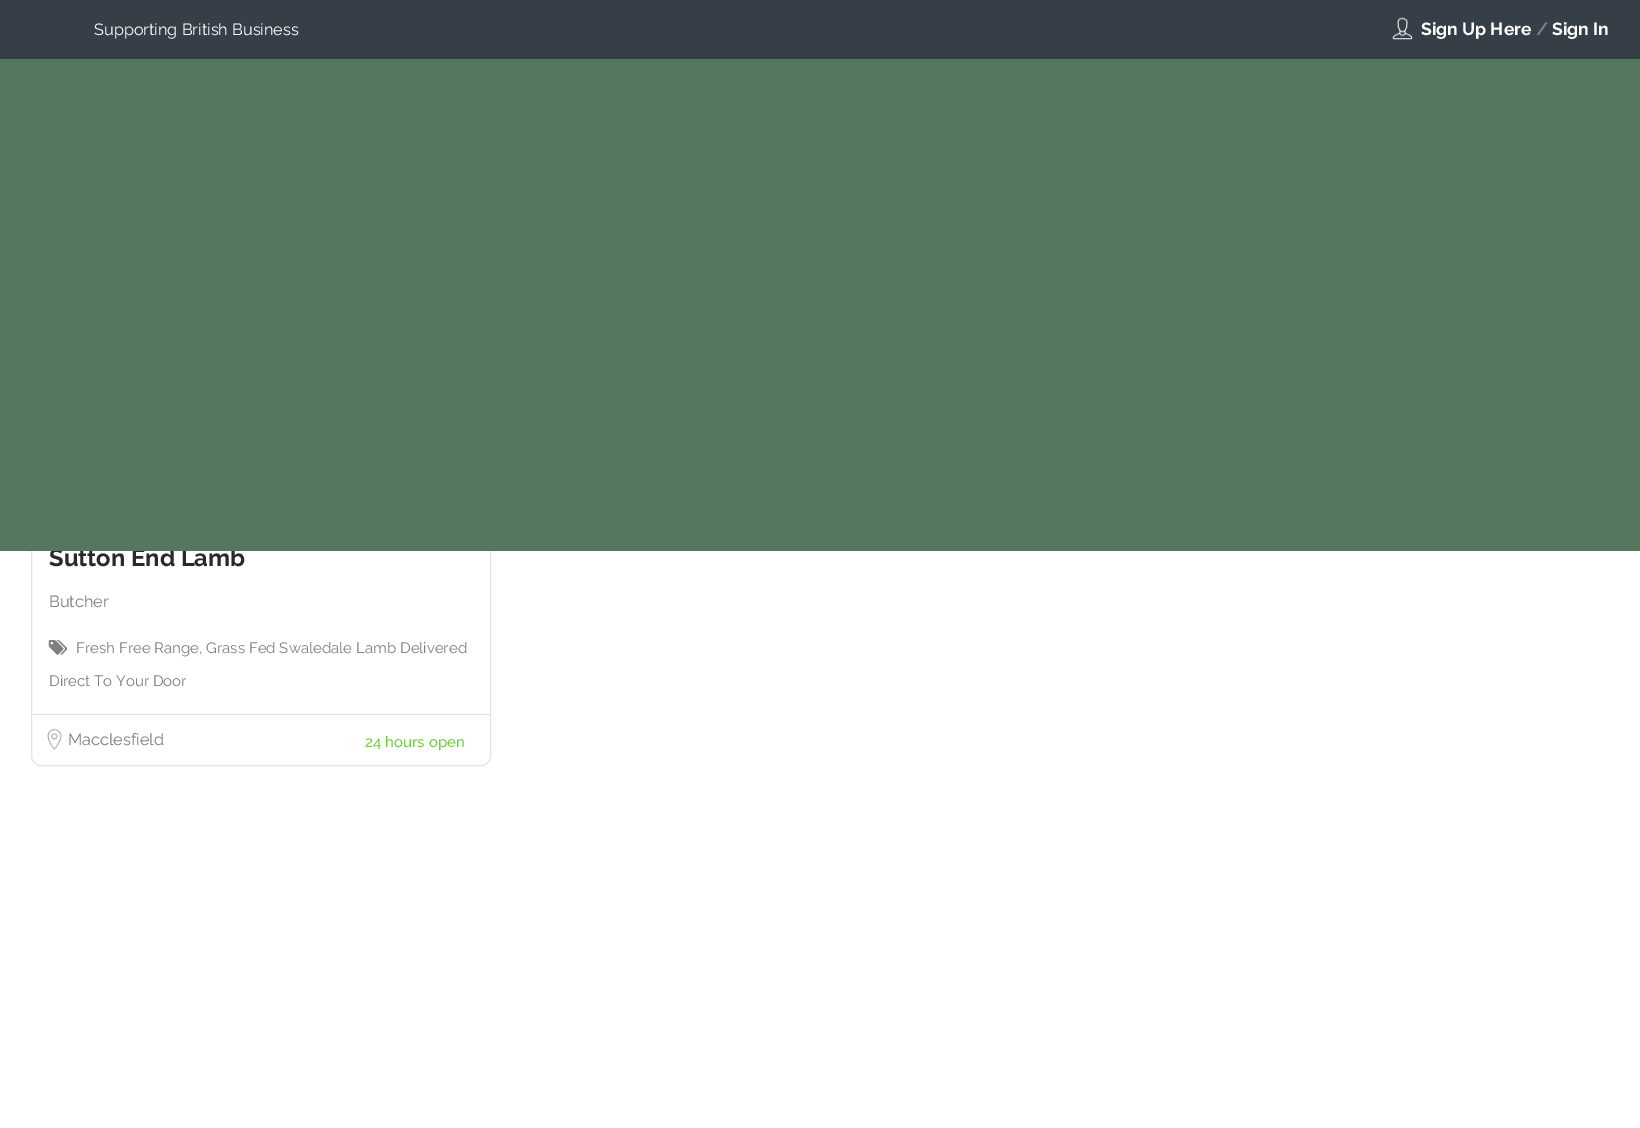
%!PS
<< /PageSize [1640 1128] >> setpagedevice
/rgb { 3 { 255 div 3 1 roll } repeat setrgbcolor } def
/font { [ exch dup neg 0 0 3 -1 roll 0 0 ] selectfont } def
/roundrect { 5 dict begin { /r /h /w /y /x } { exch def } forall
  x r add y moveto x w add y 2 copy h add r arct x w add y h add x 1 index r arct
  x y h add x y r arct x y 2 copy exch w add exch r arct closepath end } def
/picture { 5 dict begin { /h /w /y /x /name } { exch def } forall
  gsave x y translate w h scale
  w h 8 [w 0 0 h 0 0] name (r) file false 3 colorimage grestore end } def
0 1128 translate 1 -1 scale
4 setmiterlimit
255 255 255 rgb
0 0 1640 1128 rectfill
54 63 72 rgb
0 0 1640 59 rectfill
(img/1.rgb) 1392 17 21 23 picture
227 227 227 rgb
31.5 225.5 459 540 9.5 roundrect stroke
(img/2.rgb) 48 640 20 15 picture
222 222 222 rgb
33 714 457 1 rectfill
(img/3.rgb) 47 728 15 22 picture
/Raleway-Regular 16.25 font
255 255 255 rgb
94 35 moveto (Supporting British Business) show
/Raleway-Bold 17.5 font
1421 35 moveto (Sign Up Here) show
127 127 127 rgb
1536 35 moveto (/) show
255 255 255 rgb
1552 35 moveto (Sign In) show
/Raleway-Bold 23.75 font
41 41 41 rgb
49 566 moveto (Sutton End Lamb) show
84 119 94 rgb
0 59 1640 492 rectfill
/Raleway-Regular 16.25 font
127 127 127 rgb
49 607 moveto (Butcher) show
/Raleway-Regular 15 font
76 653 moveto (Fresh Free Range, Grass Fed Swaledale Lamb Delivered) show
49 686 moveto (Direct To Your Door) show
/Raleway-Regular 16.25 font
68 745 moveto (Macclesfield) show
/Raleway-Medium 15 font
115 207 66 rgb
365 747 moveto (24 hours open) show
showpage
